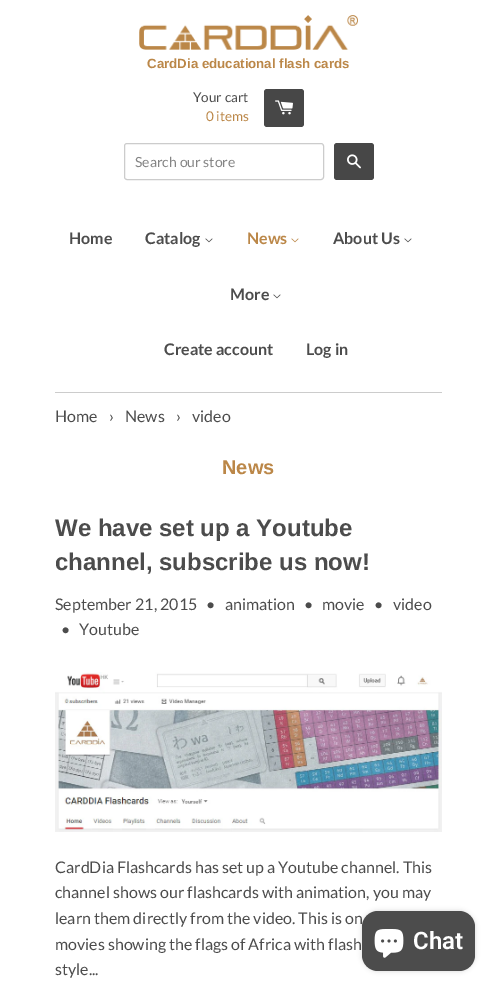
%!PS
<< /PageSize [497 992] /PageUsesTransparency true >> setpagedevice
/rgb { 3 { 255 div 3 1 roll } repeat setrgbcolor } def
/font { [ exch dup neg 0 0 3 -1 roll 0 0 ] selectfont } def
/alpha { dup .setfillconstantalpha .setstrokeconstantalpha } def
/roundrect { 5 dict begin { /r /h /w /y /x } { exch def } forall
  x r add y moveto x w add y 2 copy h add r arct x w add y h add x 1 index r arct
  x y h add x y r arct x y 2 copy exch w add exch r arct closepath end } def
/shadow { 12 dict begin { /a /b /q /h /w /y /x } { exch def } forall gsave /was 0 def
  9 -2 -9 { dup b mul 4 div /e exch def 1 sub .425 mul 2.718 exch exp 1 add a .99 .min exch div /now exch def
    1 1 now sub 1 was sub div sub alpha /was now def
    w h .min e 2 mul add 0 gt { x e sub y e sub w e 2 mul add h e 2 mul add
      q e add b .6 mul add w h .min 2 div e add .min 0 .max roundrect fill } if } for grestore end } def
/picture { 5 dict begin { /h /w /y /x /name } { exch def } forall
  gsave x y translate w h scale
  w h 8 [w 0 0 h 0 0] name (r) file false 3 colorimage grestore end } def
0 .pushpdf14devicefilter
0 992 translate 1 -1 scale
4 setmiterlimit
255 255 255 rgb
0 0 497 992 rectfill
(img/1.rgb) 139 15 219 35 picture
71 71 71 rgb
264 89 40 38 3 roundrect fill
(img/2.rgb) 275 100 18 15 picture
204 204 204 rgb
124.5 143.5 199 36 2.5 roundrect stroke
71 71 71 rgb
334 143 40 37 3 roundrect fill
(img/3.rgb) 347 154 14 15 picture
(img/4.rgb) 205 238 8 5 picture
(img/5.rgb) 291 238 8 5 picture
(img/4.rgb) 404 238 8 5 picture
(img/4.rgb) 273 294 8 5 picture
204 204 204 rgb
55 392 387 1 rectfill
(img/6.rgb) 55 672 387 160 picture
0 0 0 rgb
362 911 113 60 16 2.5 0.15 shadow
76 76 76 rgb
362 911 113 60 16 roundrect fill
(img/7.rgb) 374 929 30 29 picture
/LiberationSans-Bold 13.3 font
187 135 72 rgb
147 68 moveto (CardDia educational flash cards) show
/Lato-Regular 13.5 font
76 76 76 rgb
193 102 moveto (Your cart) show
187 135 72 rgb
206 121 moveto (0 items) show
/Lato-Regular 14 font
133 133 133 rgb
135 167 moveto (Search our store) show
/Lato-Bold 16 font
76 76 76 rgb
69 244 moveto (Home) show
145 244 moveto (Catalog) show
187 135 72 rgb
247 244 moveto (News) show
76 76 76 rgb
[
  [(About Us) 333 244]
  [(More) 230 300]
  [(Create account) 164 355]
  [(Log in) 306 355]
] { aload pop moveto show } forall
/Lato-Regular 16 font
[
  [(Home) 55 422]
  [(›) 109 422]
  [(News) 125 422]
  [(›) 176 422]
  [(video) 192 422]
] { aload pop moveto show } forall
/LiberationSans-Bold 20 font
187 135 72 rgb
222 474 moveto (News) show
/LiberationSans-Bold 24 font
76 76 76 rgb
55 536 moveto (We have set up a Youtube) show
55 570 moveto (channel, subscribe us now!) show
/Lato-Regular 16 font
[
  [(September 21, 2015) 55 610]
  [(•) 206 610]
  [(animation) 225 610]
  [(•) 304 610]
  [(movie) 322 610]
  [(•) 374 610]
  [(video) 393 610]
  [(•) 61 635]
  [(Youtube) 79 635]
  [(CardDia Flashcards has set up a Youtube channel. This) 55 873]
  [(channel shows our flashcards with animation, you may) 55 898]
  [(learn them directly from the video. This is on) 55 924]
  [(movies showing the flags of Africa with flash) 55 950]
  [(style...) 55 975]
] { aload pop moveto show } forall
/Roboto-SemiBold 24 font
255 255 255 rgb
413 949 moveto (Chat) show
.poppdf14devicefilter showpage
